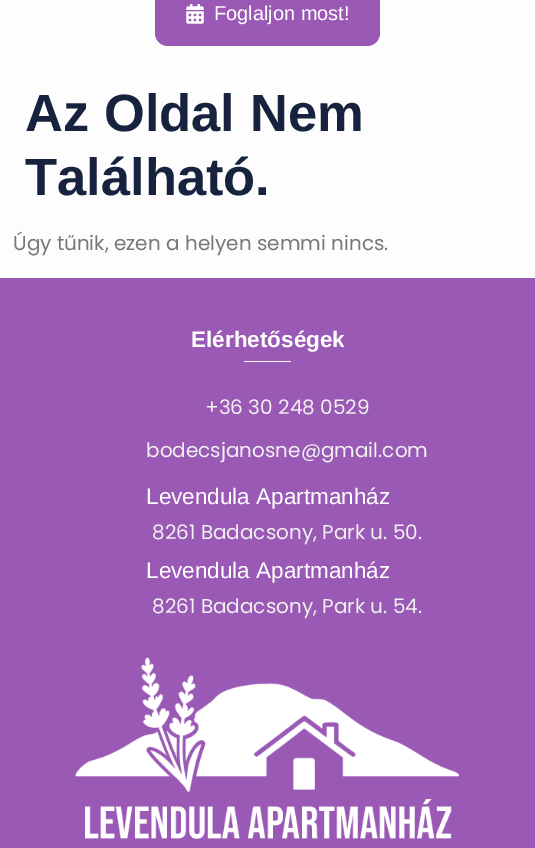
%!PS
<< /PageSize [535 848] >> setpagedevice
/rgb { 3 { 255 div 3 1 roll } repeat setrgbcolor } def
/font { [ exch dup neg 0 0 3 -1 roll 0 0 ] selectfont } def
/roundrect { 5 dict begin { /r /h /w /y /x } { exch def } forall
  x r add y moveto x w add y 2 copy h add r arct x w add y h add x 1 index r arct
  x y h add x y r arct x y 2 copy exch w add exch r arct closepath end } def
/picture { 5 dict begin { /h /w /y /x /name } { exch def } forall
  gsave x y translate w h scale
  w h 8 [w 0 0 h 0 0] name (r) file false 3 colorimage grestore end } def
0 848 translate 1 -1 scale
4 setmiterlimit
253 253 253 rgb
0 0 535 848 rectfill
155 89 182 rgb
155 -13 225 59 13 roundrect fill
(img/1.rgb) 186 4 18 20 picture
0 278 535 570 rectfill
255 255 255 rgb
244 361 47 1 rectfill
(img/2.rgb) 75 657 385 182 picture
/LiberationSans-Regular 20 font
214 20 moveto (Foglaljon most!) show
/LiberationSans-Bold 52.5 font
23 35 62 rgb
25 131 moveto (Az Oldal Nem) show
25 195 moveto (Található.) show
/Poppins-Regular 20 font
119 119 119 rgb
13 250 moveto (Úgy tűnik, ezen a helyen semmi nincs.) show
/LiberationSans-Bold 22.5 font
255 255 255 rgb
191 347 moveto (Elérhetőségek) show
/Poppins-Regular 20 font
241 241 241 rgb
205 414 moveto (+36 30 248 0529) show
146 457 moveto (bodecsjanosne@gmail.com) show
/LiberationSans-Regular 22.5 font
255 255 255 rgb
146 504 moveto (Levendula Apartmanház) show
/Poppins-Regular 20 font
241 241 241 rgb
152 539 moveto (8261 Badacsony, Park u. 50.) show
/LiberationSans-Regular 22.5 font
255 255 255 rgb
146 578 moveto (Levendula Apartmanház) show
/Poppins-Regular 20 font
241 241 241 rgb
152 613 moveto (8261 Badacsony, Park u. 54.) show
showpage
